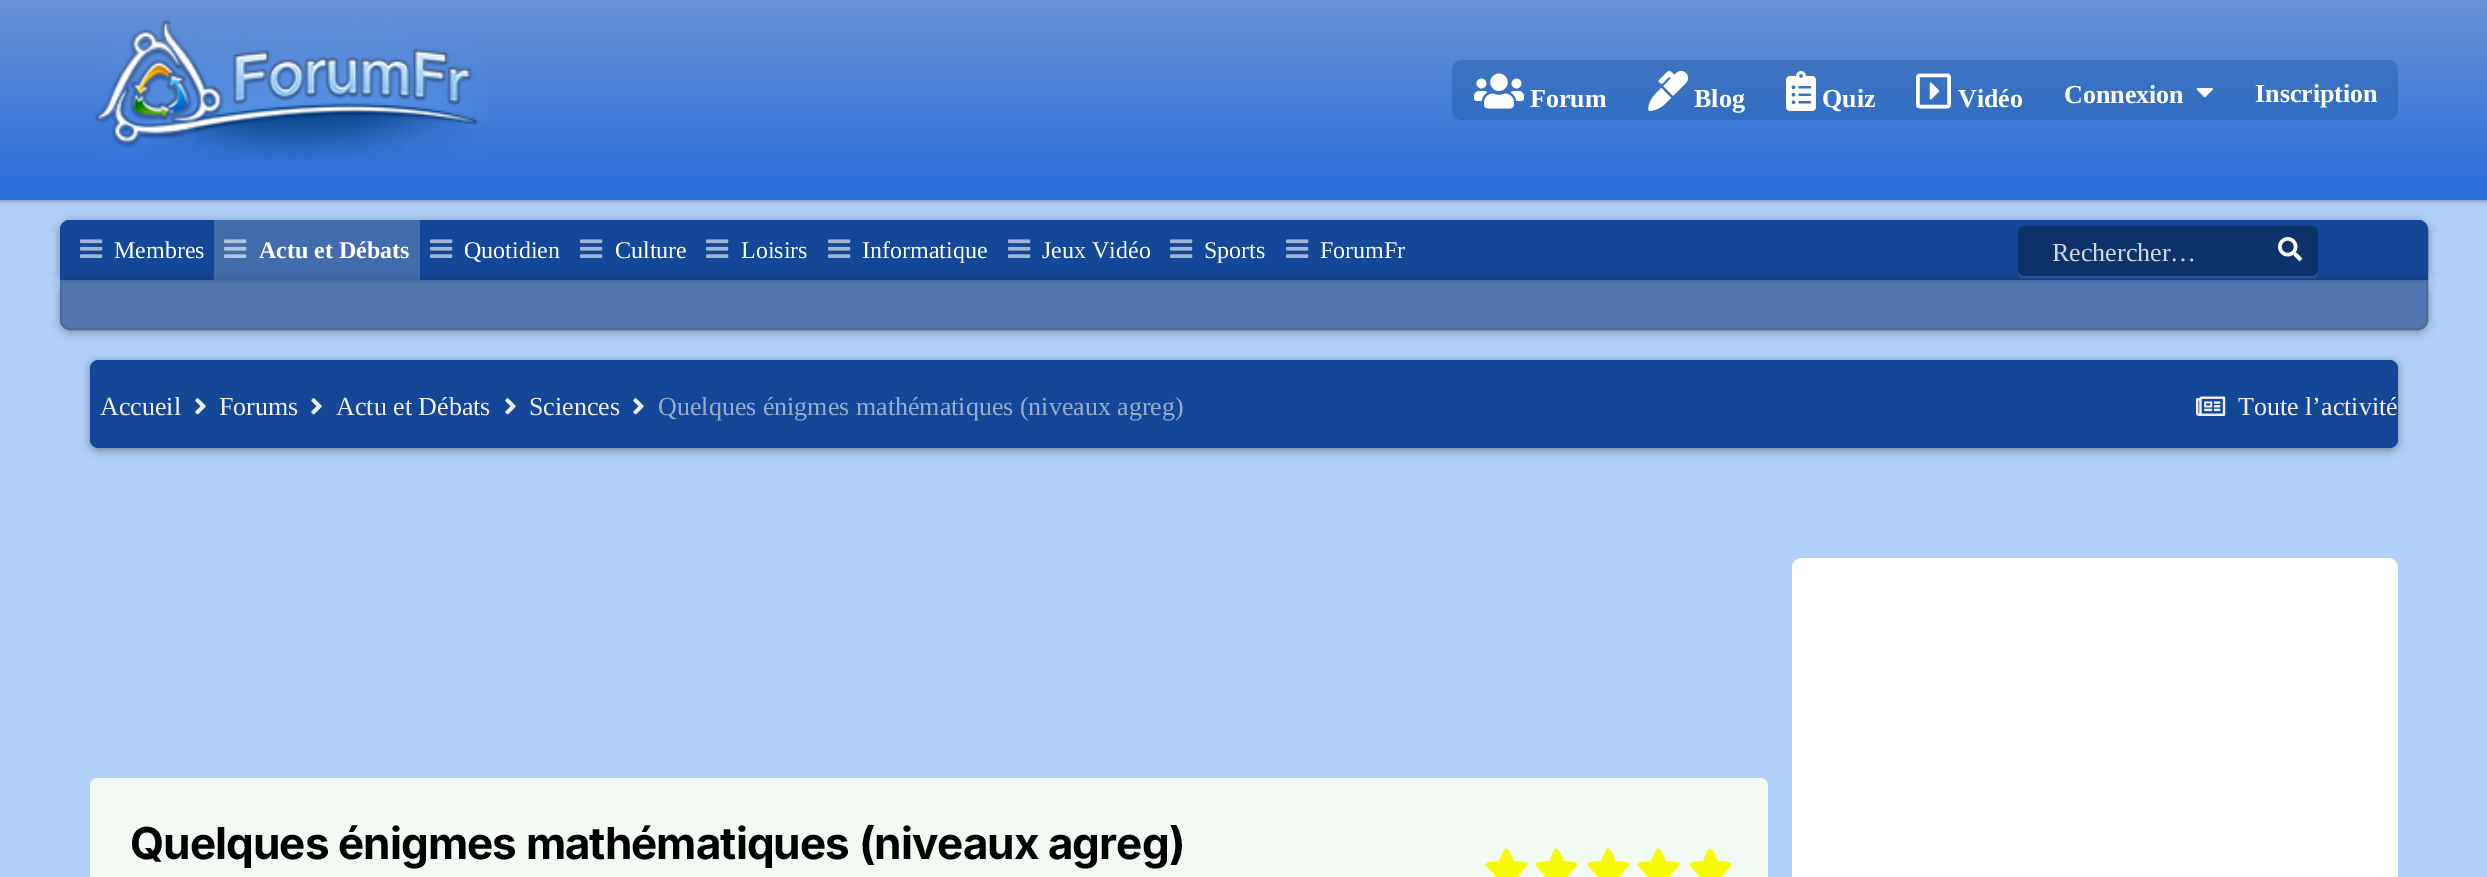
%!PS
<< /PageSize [2487 877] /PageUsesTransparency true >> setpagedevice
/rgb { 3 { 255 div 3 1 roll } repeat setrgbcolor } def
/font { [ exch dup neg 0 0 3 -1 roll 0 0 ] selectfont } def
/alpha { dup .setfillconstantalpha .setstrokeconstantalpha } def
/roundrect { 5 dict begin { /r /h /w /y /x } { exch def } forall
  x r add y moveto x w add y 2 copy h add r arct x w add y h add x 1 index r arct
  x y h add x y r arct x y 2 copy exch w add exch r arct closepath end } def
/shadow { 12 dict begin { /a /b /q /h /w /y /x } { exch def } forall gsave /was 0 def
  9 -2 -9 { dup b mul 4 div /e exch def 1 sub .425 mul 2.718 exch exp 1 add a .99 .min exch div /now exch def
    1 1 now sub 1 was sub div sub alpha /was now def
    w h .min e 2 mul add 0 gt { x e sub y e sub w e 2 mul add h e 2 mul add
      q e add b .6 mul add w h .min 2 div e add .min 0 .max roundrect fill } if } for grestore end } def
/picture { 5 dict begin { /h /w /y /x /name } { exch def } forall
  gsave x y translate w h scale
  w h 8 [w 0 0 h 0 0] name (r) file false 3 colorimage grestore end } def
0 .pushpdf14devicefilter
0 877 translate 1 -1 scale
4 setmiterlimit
178 209 250 rgb
0 0 2487 877 rectfill
160 188 225 rgb
0 200 2487 2 rectfill
0 0 0 rgb
0 2 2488 200 0 4 0.15 shadow
gsave 0 0 moveto 2487 0 lineto 2487 200 lineto 0 200 lineto closepath clip newpath
<< /ShadingType 2 /ColorSpace /DeviceRGB /Coords [1244 0 1244 200] /Extend [true true] /Function << /FunctionType 2 /Domain [0 1] /C0 [0.404 0.569 0.831] /C1 [0.161 0.431 0.867] /N 1 >> >> shfill grestore
(img/1.rgb) 95 19 393 141 picture
0.3 alpha
13 75 146 rgb
1452 60 946 60 10 roundrect fill
1 alpha
(img/2.rgb) 1474 73 50 36 picture
(img/3.rgb) 1648 71 41 40 picture
(img/4.rgb) 1786 71 30 40 picture
(img/5.rgb) 1916 73 35 36 picture
(img/6.rgb) 2196 88 17 10 picture
0 0 0 rgb
60 222 2368 60 10 5 0.4 shadow
0.5 alpha
2 setlinewidth
70 221 moveto 2418 221 lineto 2423 221 2427 225 2427 230 curveto 2427 279 lineto 61 279 lineto 61 230 lineto 61 225 65 221 70 221 curveto closepath stroke
1 alpha
20 71 152 rgb
70 220 moveto 2418 220 lineto 2423.5 220 2428 224.5 2428 230 curveto 2428 280 lineto 60 280 lineto 60 230 lineto 60 224.5 64.5 220 70 220 curveto closepath fill
(img/7.rgb) 80 239 23 19 picture
gsave
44 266 moveto 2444 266 lineto 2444 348 lineto 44 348 lineto closepath 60 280 moveto 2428 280 lineto 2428 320 lineto 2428 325.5 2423.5 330 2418 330 curveto 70 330 lineto 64.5 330 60 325.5 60 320 curveto closepath eoclip newpath
0 0 0 rgb
60 282 2368 50 10 5 0.36 shadow
grestore
0.2 alpha
255 255 255 rgb
214 220 206 60 rectfill
1 alpha
(img/8.rgb) 224 239 23 19 picture
(img/7.rgb) 430 239 23 19 picture
(img/7.rgb) 580 239 23 19 picture
(img/7.rgb) 706 239 23 19 picture
(img/7.rgb) 828 239 23 19 picture
(img/7.rgb) 1008 239 23 19 picture
(img/7.rgb) 1170 239 23 19 picture
(img/7.rgb) 1286 239 23 19 picture
0.1 alpha
2018 270 moveto 2018 272 lineto 2018 275 2021 278 2024 278 curveto 2312 278 lineto 2315 278 2318 275 2318 272 curveto 2318 270 lineto 2318 273 2315 276 2312 276 curveto 2024 276 lineto 2021 276 2018 273 2018 270 curveto closepath fill
0.3 alpha
0 0 0 rgb
2018 226 300 50 6 roundrect fill
1 alpha
(img/9.rgb) 2278 237 24 24 picture
0.9 alpha
255 255 255 rgb
60 280 moveto 2428 280 lineto 2428 320 lineto 2428 325.5 2423.5 330 2418 330 curveto 70 330 lineto 64.5 330 60 325.5 60 320 curveto closepath fill
0.45 alpha
0 0 0 rgb
61 281 moveto 2427 281 lineto 2427 320 lineto 2427 325 2423 329 2418 329 curveto 70 329 lineto 65 329 61 325 61 320 curveto closepath stroke
0.9 alpha
65 104 165 rgb
60 280 moveto 2428 280 lineto 2428 320 lineto 2428 325.5 2423.5 330 2418 330 curveto 70 330 lineto 64.5 330 60 325.5 60 320 curveto closepath fill
1 alpha
0 0 0 rgb
90 362 2308 88 8 5 0.4 shadow
20 71 152 rgb
98 360 moveto 94 360 90 364 90 368 curveto 90 440 lineto 90 444 94 448 98 448 curveto 2390 448 lineto 2394 448 2398 444 2398 440 curveto 2398 368 lineto 2398 364 2394 360 2390 360 curveto closepath fill
(img/10.rgb) 195 398 11 17 picture
(img/10.rgb) 311 398 11 17 picture
(img/10.rgb) 505 398 11 17 picture
(img/10.rgb) 633 398 11 17 picture
(img/11.rgb) 2196 396 30 20 picture
243 250 243 rgb
90 778 1678 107 8 roundrect fill
247 250 7 rgb
1504 850 moveto 1508 844 1513 860 1514 861 curveto 1531 863 1531 862 1518 875 curveto 1521 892 1522 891 1506 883 curveto 1491 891 1492 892 1495 875 curveto 1482 862 1482 863 1499 861 curveto closepath fill
1554 850 moveto 1558 844 1563 860 1564 861 curveto 1581 863 1581 862 1568 875 curveto 1571 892 1572 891 1556 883 curveto 1541 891 1542 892 1545 875 curveto 1532 862 1532 863 1549 861 curveto closepath fill
1606 850 moveto 1610 844 1615 860 1616 861 curveto 1633 863 1633 862 1620 875 curveto 1623 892 1624 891 1608 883 curveto 1593 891 1594 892 1597 875 curveto 1584 862 1584 863 1601 861 curveto closepath fill
1656 850 moveto 1660 844 1665 860 1666 861 curveto 1683 863 1683 862 1670 875 curveto 1673 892 1674 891 1658 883 curveto 1643 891 1644 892 1647 875 curveto 1634 862 1634 863 1651 861 curveto closepath fill
1708 850 moveto 1712 844 1717 860 1718 861 curveto 1735 863 1735 862 1722 875 curveto 1725 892 1726 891 1710 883 curveto 1695 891 1696 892 1699 875 curveto 1686 862 1686 863 1703 861 curveto closepath fill
255 255 255 rgb
1792 558 606 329 10 roundrect fill
/LiberationSerif-Bold 26 font
[
  [(Forum) 1530 107]
  [(Blog) 1694 107]
  [(Quiz) 1822 107]
  [(Vidéo) 1958 107]
  [(Connexion) 2064 103]
  [(Inscription) 2255 102]
] { aload pop moveto show } forall
/LiberationSerif-Regular 24 font
114 258 moveto (Membres) show
/LiberationSerif-Bold 24 font
259 258 moveto (Actu et Débats) show
/LiberationSerif-Regular 24 font
[
  [(Quotidien) 464 258]
  [(Culture) 615 258]
  [(Loisirs) 741 258]
  [(Informatique) 862 258]
  [(Jeux Vidéo) 1042 258]
  [(Sports) 1204 258]
  [(ForumFr) 1320 258]
] { aload pop moveto show } forall
/LiberationSerif-Regular 26 font
207 214 225 rgb
2052 261 moveto (Rechercher…) show
238 238 238 rgb
[
  [(Accueil) 100 415]
  [(Forums) 219 415]
  [(Actu et Débats) 336 415]
  [(Sciences) 529 415]
] { aload pop moveto show } forall
151 171 204 rgb
658 415 moveto (Quelques énigmes mathématiques \(niveaux agreg\)) show
238 238 238 rgb
2238 415 moveto (Toute l’activité) show
/Inter-Bold 44 font
0 0 0 rgb
130 859 moveto -0.9 0 (Quelques énigmes mathématiques \(niveaux agreg\)) ashow
.poppdf14devicefilter showpage
